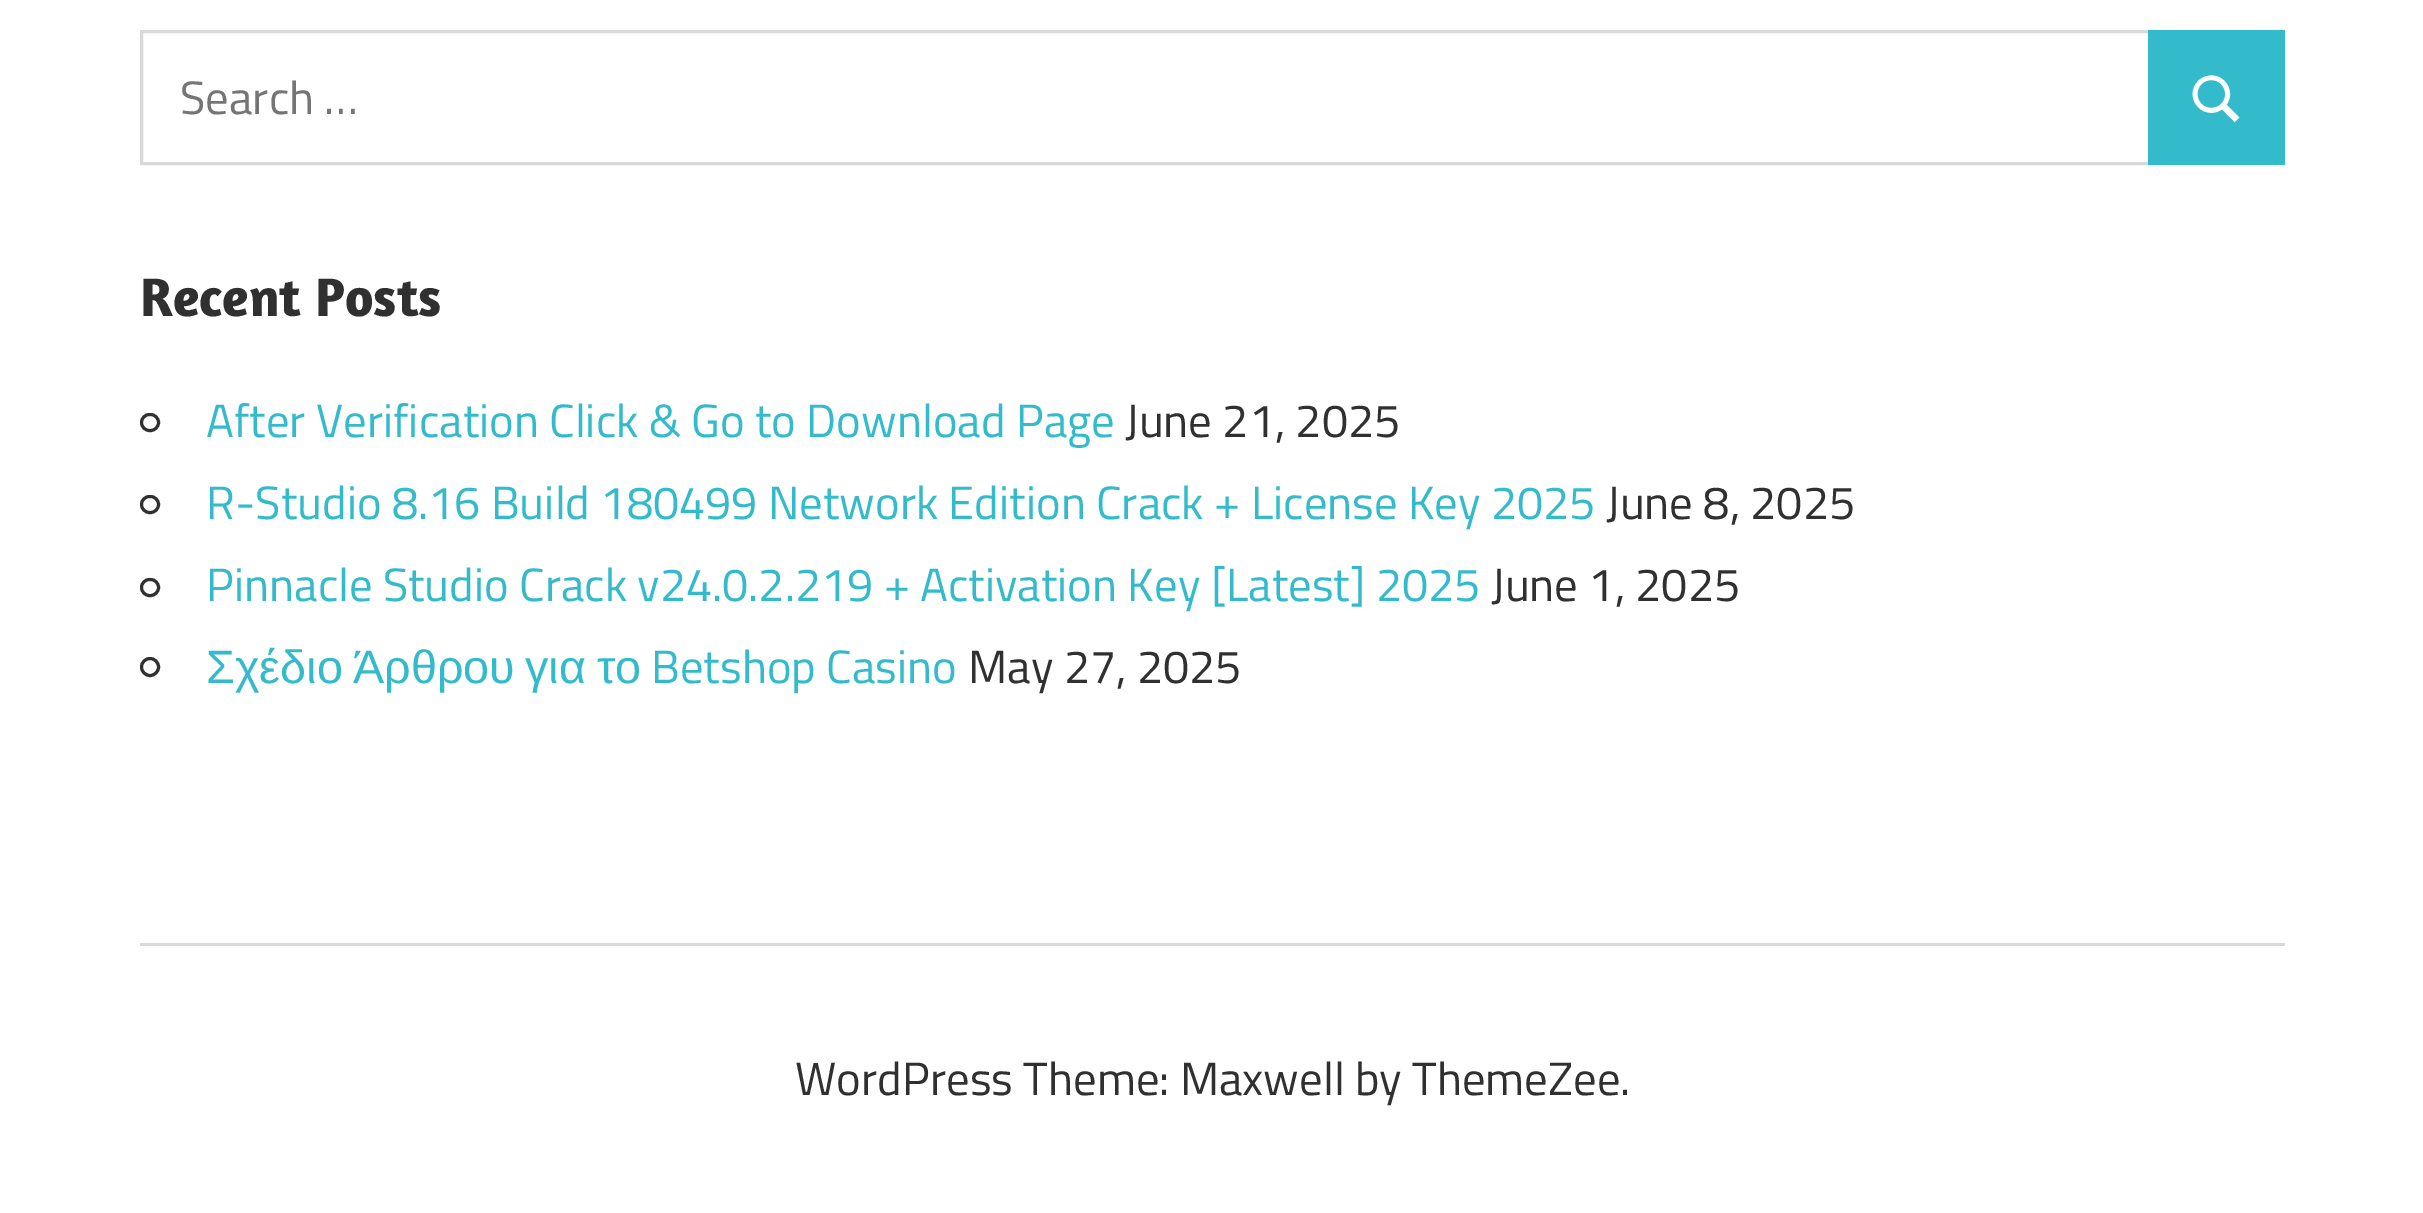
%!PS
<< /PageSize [2423 1213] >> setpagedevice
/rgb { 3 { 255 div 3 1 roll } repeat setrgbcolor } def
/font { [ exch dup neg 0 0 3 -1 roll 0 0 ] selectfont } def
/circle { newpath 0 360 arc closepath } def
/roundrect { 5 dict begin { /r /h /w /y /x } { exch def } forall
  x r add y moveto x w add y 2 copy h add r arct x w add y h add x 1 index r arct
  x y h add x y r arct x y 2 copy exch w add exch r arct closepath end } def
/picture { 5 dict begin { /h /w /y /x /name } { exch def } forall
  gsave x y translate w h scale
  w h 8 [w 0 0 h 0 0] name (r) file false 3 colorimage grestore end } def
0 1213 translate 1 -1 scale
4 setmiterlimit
255 255 255 rgb
0 0 2423 1213 rectfill
217 217 217 rgb
3 setlinewidth
141.5 31.5 2008 132 rectstroke
51 187 204 rgb
2148 30 137 135 rectfill
(img/1.rgb) 2192 75 48 48 picture
48 48 48 rgb
141.5 414.5 17 16 8 roundrect stroke
141.5 496.5 17 16 8 roundrect stroke
141.5 579.5 17 16 8 roundrect stroke
150 667 8.5 circle stroke
217 217 217 rgb
140 943 2145 3 rectfill
/TitilliumWeb-Regular 46.75 font
117 117 117 rgb
180 114 moveto (Search …) show
/Amaranth-Bold 55 font
48 48 48 rgb
140 316 moveto (Recent Posts) show
/TitilliumWeb-Regular 46.75 font
51 187 204 rgb
206 437 moveto (After Verification Click & Go to Download Page) show
48 48 48 rgb
1125 437 moveto (June 21, 2025) show
51 187 204 rgb
206 519 moveto (R-Studio 8.16 Build 180499 Network Edition Crack + License Key 2025) show
48 48 48 rgb
1606 519 moveto (June 8, 2025) show
51 187 204 rgb
206 601 moveto (Pinnacle Studio Crack v24.0.2.219 + Activation Key [Latest] 2025) show
48 48 48 rgb
1491 601 moveto (June 1, 2025) show
/LiberationSans-Regular 46.75 font
51 187 204 rgb
[
  [(Σχέδιο) 206 683]
  [(Άρθρου) 353 683]
  [(για) 525 683]
  [(το) 597 683]
] { aload pop moveto show } forall
/TitilliumWeb-Regular 46.75 font
651 683 moveto (Betshop Casino) show
48 48 48 rgb
968 683 moveto (May 27, 2025) show
795 1095 moveto (WordPress Theme: Maxwell by ThemeZee.) show
showpage
